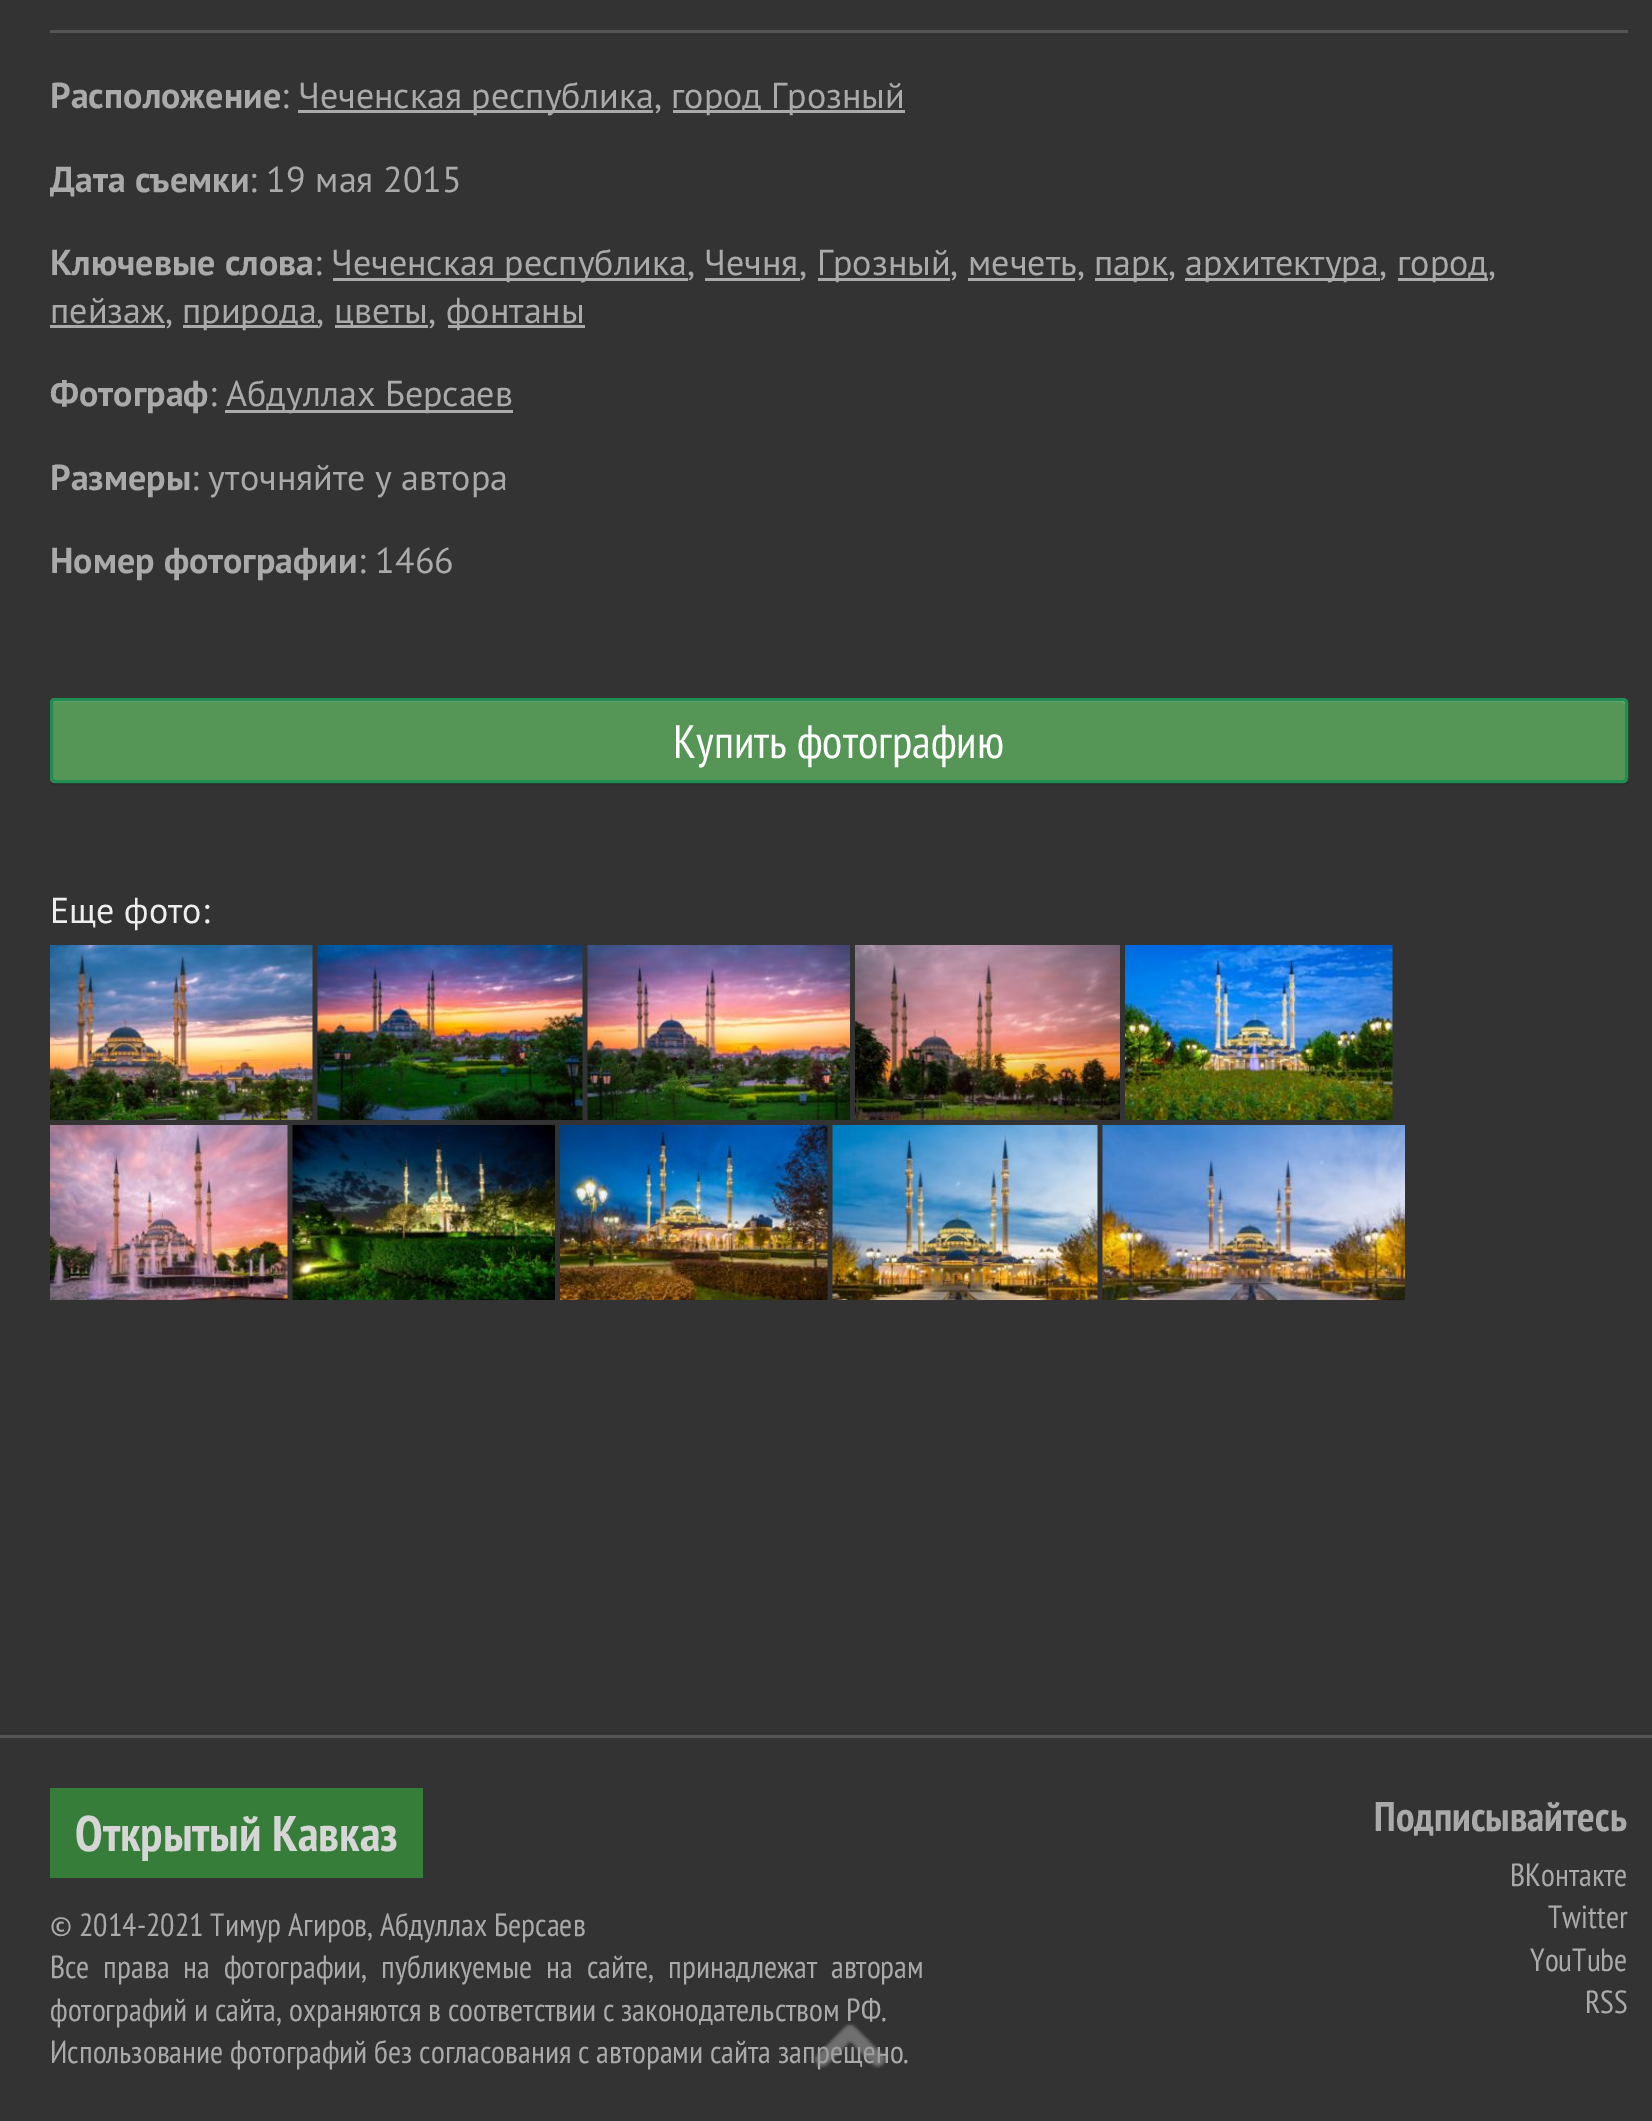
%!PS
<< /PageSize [1652 2121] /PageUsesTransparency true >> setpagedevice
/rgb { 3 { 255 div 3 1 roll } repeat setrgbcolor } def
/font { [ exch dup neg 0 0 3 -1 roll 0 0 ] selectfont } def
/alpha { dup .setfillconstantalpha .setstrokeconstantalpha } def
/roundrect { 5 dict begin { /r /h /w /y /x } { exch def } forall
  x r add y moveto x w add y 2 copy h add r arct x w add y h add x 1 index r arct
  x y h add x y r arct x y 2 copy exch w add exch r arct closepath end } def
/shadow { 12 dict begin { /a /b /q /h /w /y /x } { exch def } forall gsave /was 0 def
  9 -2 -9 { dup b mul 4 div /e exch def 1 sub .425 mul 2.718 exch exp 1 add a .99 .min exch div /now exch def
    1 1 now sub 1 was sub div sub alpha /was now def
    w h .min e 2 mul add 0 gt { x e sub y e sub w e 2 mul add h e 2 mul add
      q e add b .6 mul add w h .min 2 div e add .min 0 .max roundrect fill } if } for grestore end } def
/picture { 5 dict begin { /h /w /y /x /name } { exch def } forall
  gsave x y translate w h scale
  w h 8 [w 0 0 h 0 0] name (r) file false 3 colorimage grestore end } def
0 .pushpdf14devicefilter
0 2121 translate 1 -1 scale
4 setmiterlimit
51 51 51 rgb
0 0 1652 2121 rectfill
[
  [50 30 1578 3 85 85 85]
  [298 110 355 3 170 170 170]
  [673 110 232 3 170 170 170]
  [333 278 355 3 170 170 170]
  [818 278 132 3 170 170 170]
  [1095 278 73 3 170 170 170]
  [1185 278 195 3 170 170 170]
  [1398 278 90 3 170 170 170]
  [705 278 95 3 170 170 170]
  [968 278 107 3 170 170 170]
  [50 325 115 3 170 170 170]
  [183 325 135 3 170 170 170]
  [335 325 93 3 170 170 170]
  [448 325 137 3 170 170 170]
  [225 410 288 3 170 170 170]
] { aload pop rgb rectfill } forall
0 0 0 rgb
50 700 1578 85 5 1 0.2 shadow
85 149 85 rgb
50 698 1578 85 5 roundrect fill
119 170 119 rgb
55 702 moveto 1622 702 lineto 1624 702 1625 704 1625 705 curveto 1625 702 lineto 1625 701 1624 700 1622 700 curveto 56 700 lineto 54 700 53 701 53 702 curveto 53 703 lineto closepath fill
32 141 83 rgb
3 setlinewidth
51.5 699.5 1575 82 3.5 roundrect stroke
(img/1.rgb) 50 945 263 175 picture
(img/2.rgb) 317 945 266 175 picture
(img/3.rgb) 587 945 263 175 picture
(img/4.rgb) 855 945 265 175 picture
(img/5.rgb) 1125 945 268 175 picture
(img/6.rgb) 50 1125 238 175 picture
(img/7.rgb) 292 1125 263 175 picture
(img/8.rgb) 560 1125 268 175 picture
(img/9.rgb) 832 1125 266 175 picture
(img/10.rgb) 1102 1125 303 175 picture
85 85 85 rgb
0 1735 1652 3 rectfill
53 125 56 rgb
50 1788 373 90 rectfill
/PTSans-Bold 36 font
170 170 170 rgb
50 108 moveto (Расположение) show
/PTSans-Regular 36 font
[
  [(:) 281 108]
  [(Чеченская республика,) 298 108]
  [(город Грозный) 671 108]
] { aload pop moveto show } forall
/PTSans-Bold 36 font
50 192 moveto (Дата съемки) show
/PTSans-Regular 36 font
249 192 moveto (: 19 мая 2015) show
/PTSans-Bold 36 font
50 275 moveto (Ключевые слова) show
/PTSans-Regular 36 font
[
  [(:) 314 275]
  [(Чеченская республика, Чечня,) 331 275]
  [(Грозный, мечеть,) 817 275]
  [(парк,) 1094 275]
  [(архитектура,) 1185 275]
  [(город,) 1397 275]
  [(пейзаж,) 50 323]
  [(природа,) 182 323]
  [(цветы,) 334 323]
  [(фонтаны) 446 323]
] { aload pop moveto show } forall
/PTSans-Bold 36 font
50 406 moveto (Фотограф) show
/PTSans-Regular 36 font
209 406 moveto (:) show
226 406 moveto (Абдуллах Берсаев) show
/PTSans-Bold 36 font
50 490 moveto (Размеры) show
/PTSans-Regular 36 font
191 490 moveto (: уточняйте у автора) show
/PTSans-Bold 36 font
50 573 moveto (Номер фотографии) show
/PTSans-Regular 36 font
358 573 moveto (: 1466) show
/PTSansNarrow-Regular 46.75 font
255 255 255 rgb
673 758 moveto (Купить фотографию) show
/PTSans-Regular 36 font
238 238 238 rgb
50 923 moveto (Еще фото:) show
/PTSansNarrow-Bold 50 font
214 214 214 rgb
75 1851 moveto (Открытый Кавказ) show
/PTSansNarrow-Regular 32 font
170 170 170 rgb
50 1936 moveto (© 2014-2021 Тимур Агиров, Абдуллах Берсаев) show
50 1978 moveto 7 0 32 (Все права на фотографии, публикуемые на сайте, принадлежат авторам) widthshow
50 2021 moveto (фотографий и сайта, охраняются в соответствии с законодательством РФ.) show
50 2063 moveto (Использование фотографий без согласования с авторами сайта запрещено.) show
/PTSansNarrow-Bold 41.5 font
1374 1831 moveto (Подписывайтесь) show
/PTSansNarrow-Regular 32 font
[
  [(ВКонтакте) 1510 1886]
  [(Тwitter) 1548 1928]
  [(YouTube) 1530 1971]
  [(RSS) 1585 2013]
] { aload pop moveto show } forall
(img/11.rgb) 814 2023 72 45 picture
.poppdf14devicefilter showpage
